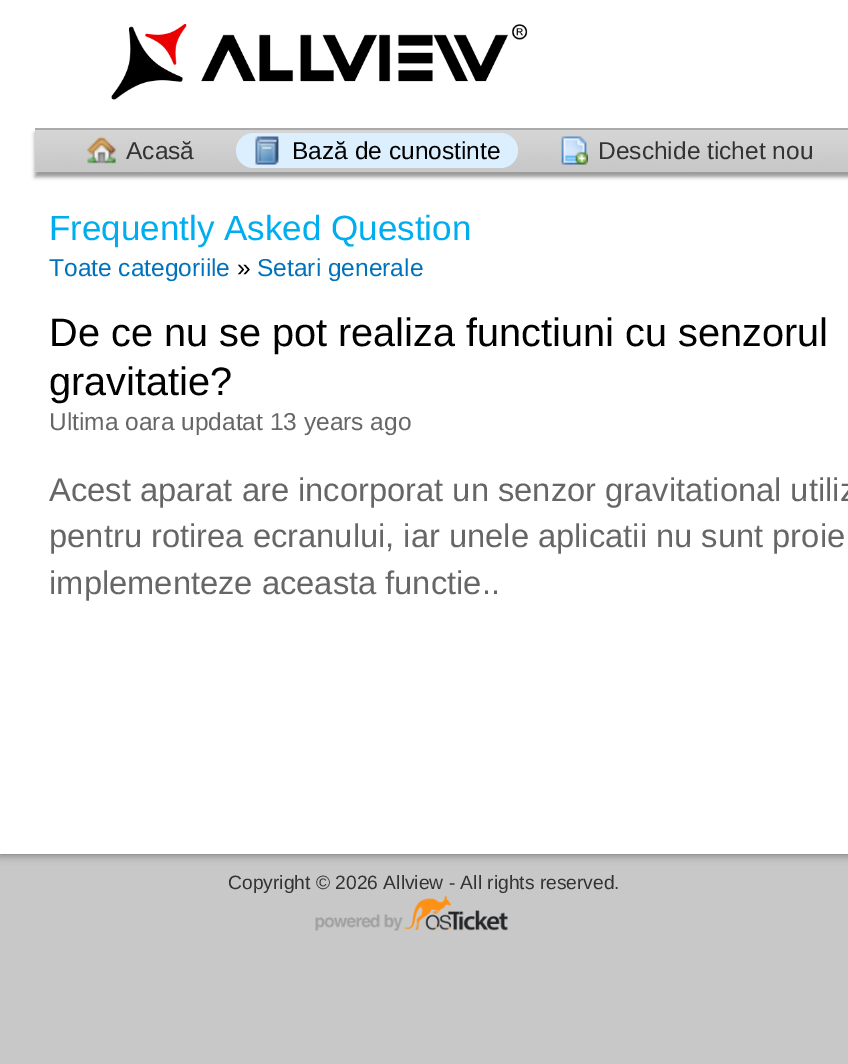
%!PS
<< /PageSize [848 1064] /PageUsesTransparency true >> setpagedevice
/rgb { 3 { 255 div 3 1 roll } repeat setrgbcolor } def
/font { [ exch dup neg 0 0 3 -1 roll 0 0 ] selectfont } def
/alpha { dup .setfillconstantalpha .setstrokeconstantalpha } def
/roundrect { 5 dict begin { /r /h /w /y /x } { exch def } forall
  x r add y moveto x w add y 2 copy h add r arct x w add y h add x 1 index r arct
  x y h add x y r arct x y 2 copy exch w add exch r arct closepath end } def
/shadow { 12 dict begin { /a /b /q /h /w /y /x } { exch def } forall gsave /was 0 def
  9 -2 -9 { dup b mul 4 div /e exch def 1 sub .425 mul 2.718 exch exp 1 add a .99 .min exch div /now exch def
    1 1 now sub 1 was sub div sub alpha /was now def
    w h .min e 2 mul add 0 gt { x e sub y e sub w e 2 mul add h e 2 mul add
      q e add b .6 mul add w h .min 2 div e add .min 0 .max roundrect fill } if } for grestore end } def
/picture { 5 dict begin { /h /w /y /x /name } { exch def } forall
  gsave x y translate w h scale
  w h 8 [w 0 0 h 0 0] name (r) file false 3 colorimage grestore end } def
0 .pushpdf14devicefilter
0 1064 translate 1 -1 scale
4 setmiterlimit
200 200 200 rgb
0 0 848 1064 rectfill
0 0 0 rgb
0 0 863 854 0 5 0.5 shadow
255 255 255 rgb
0 0 848 854 rectfill
(img/1.rgb) 111 23 417 77 picture
0 0 0 rgb
35 133 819 44 0 2 0.4 shadow
(img/2.rgb) 35 130 813 42 picture
170 170 170 rgb
35 128 813 2 rectfill
(img/3.rgb) 87 136 29 28 picture
219 239 255 rgb
236 133 282 35 17.5 roundrect fill
(img/4.rgb) 255 136 24 29 picture
(img/5.rgb) 561 136 27 29 picture
(img/6.rgb) 315 896 193 35 picture
/LiberationSans-Regular 24.5 font
51 51 51 rgb
126 159 moveto (Acasă) show
0 0 0 rgb
292 159 moveto (Bază de cunostinte) show
51 51 51 rgb
598 159 moveto (Deschide tichet nou) show
/LiberationSans-Regular 35 font
0 174 239 rgb
49 240 moveto (Frequently Asked Question) show
/LiberationSans-Regular 24.5 font
0 114 188 rgb
49 276 moveto (Toate categoriile) show
0 0 0 rgb
237 276 moveto (») show
0 114 188 rgb
257 276 moveto (Setari generale) show
/LiberationSans-Regular 39.7 font
0 0 0 rgb
49 346 moveto (De ce nu se pot realiza functiuni cu senzorul) show
49 395 moveto (gravitatie?) show
/LiberationSans-Regular 24.5 font
102 102 102 rgb
49 430 moveto (Ultima oara updatat 13 years ago) show
/LiberationSans-Regular 32.7 font
[
  [(Acest aparat are incorporat un senzor gravitational utiliz) 49 501]
  [(pentru rotirea ecranului, iar unele aplicatii nu sunt proie) 49 547]
  [(implementeze aceasta functie..) 49 594]
] { aload pop moveto show } forall
/LiberationSans-Regular 19.25 font
51 51 51 rgb
228 889 moveto (Copyright © 2026 Allview - All rights reserved.) show
.poppdf14devicefilter showpage
